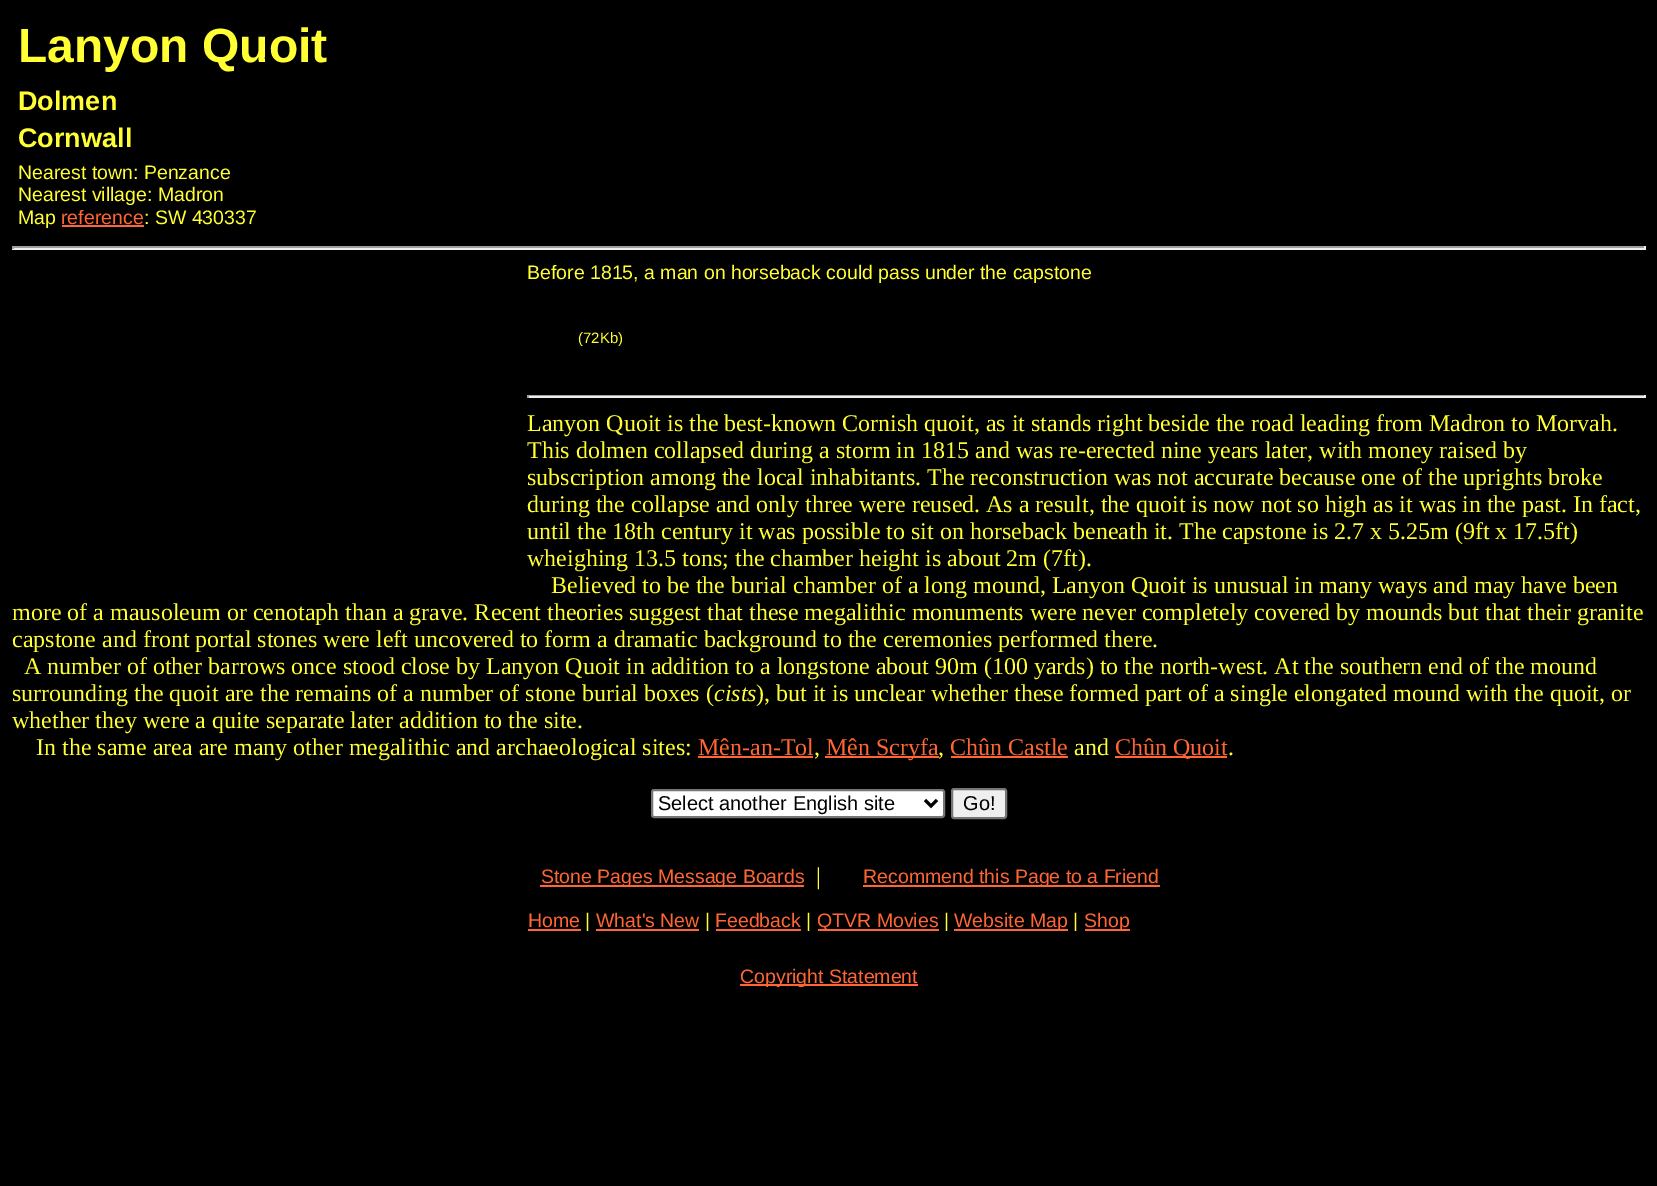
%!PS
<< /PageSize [1657 1186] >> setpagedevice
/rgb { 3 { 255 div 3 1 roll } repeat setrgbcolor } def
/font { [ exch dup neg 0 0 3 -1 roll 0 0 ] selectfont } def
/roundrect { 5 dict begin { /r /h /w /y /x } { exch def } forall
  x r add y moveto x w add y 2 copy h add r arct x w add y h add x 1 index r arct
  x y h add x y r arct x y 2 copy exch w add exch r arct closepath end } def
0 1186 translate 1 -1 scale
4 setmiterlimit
0 0 0 rgb
0 0 1657 1186 rectfill
[
  [62 225 82 2 255 102 51]
  [12 246 1634 2 159 159 159]
  [1644 246 2 3 238 238 238]
  [12 248 1634 2 238 238 238]
  [12 246 2 3 159 159 159]
  [527 395 1119 1 159 159 159]
  [1644 395 2 3 238 238 238]
  [527 396 1119 2 238 238 238]
  [527 395 2 3 159 159 159]
  [698 756 115 2 255 102 51]
  [825 756 114 2 255 102 51]
  [951 756 117 2 255 102 51]
  [1115 756 112 2 255 102 51]
] { aload pop rgb rectfill } forall
255 255 255 rgb
652 790 292 27 2 roundrect gsave fill grestore
118 118 118 rgb
2 setlinewidth
stroke
0 0 0 rgb
3 setlinewidth
925 800 moveto 931 806 lineto 937 800 lineto stroke
239 239 239 rgb
952 789 54 29 2 roundrect gsave fill grestore
118 118 118 rgb
2 setlinewidth
stroke
[
  [540 885 264 2 255 102 51]
  [863 885 297 2 255 102 51]
  [528 929 53 2 255 102 51]
  [596 929 103 2 255 102 51]
  [716 929 85 2 255 102 51]
  [818 929 121 2 255 102 51]
  [954 929 114 2 255 102 51]
  [1085 929 45 2 255 102 51]
  [740 984 178 2 255 102 51]
] { aload pop rgb rectfill } forall
/LiberationSans-Bold 48 font
255 255 51 rgb
18 62 moveto (Lanyon Quoit) show
/LiberationSans-Bold 27 font
18 110 moveto (Dolmen) show
18 147 moveto (Cornwall) show
/LiberationSans-Regular 19.5 font
[
  [(Nearest town: Penzance) 18 179]
  [(Nearest village: Madron) 18 201]
  [(Map) 18 224]
] { aload pop moveto show } forall
255 102 51 rgb
61 224 moveto (reference) show
255 255 51 rgb
144 224 moveto (: SW 430337) show
527 279 moveto (Before 1815, a man on horseback could pass under the capstone) show
/LiberationSans-Regular 15 font
578 343 moveto (\(72Kb\)) show
/LiberationSerif-Regular 24 font
[
  [(Lanyon Quoit is the best-known Cornish quoit, as it stands right beside the road leading from Madron to Morvah.) 527 431]
  [(This dolmen collapsed during a storm in 1815 and was re-erected nine years later, with money raised by) 527 458]
  [(subscription among the local inhabitants. The reconstruction was not accurate because one of the uprights broke) 527 485]
  [(during the collapse and only three were reused. As a result, the quoit is now not so high as it was in the past. In fact,) 527 512]
  [(until the 18th century it was possible to sit on horseback beneath it. The capstone is 2.7 x 5.25m \(9ft x 17.5ft\)) 527 539]
  [(wheighing 13.5 tons; the chamber height is about 2m \(7ft\).) 527 566]
  [(Believed to be the burial chamber of a long mound, Lanyon Quoit is unusual in many ways and may have been) 551 593]
  [(more of a mausoleum or cenotaph than a grave. Recent theories suggest that these megalithic monuments were never completely covered by mounds but that their granite) 12 620]
  [(capstone and front portal stones were left uncovered to form a dramatic background to the ceremonies performed there.) 12 647]
  [(A number of other barrows once stood close by Lanyon Quoit in addition to a longstone about 90m \(100 yards\) to the north-west. At the southern end of the mound) 24 674]
  [(surrounding the quoit are the remains of a number of stone burial boxes \() 12 701]
] { aload pop moveto show } forall
/LiberationSerif-Italic 24 font
714 701 moveto (cists) show
/LiberationSerif-Regular 24 font
[
  [(\), but it is unclear whether these formed part of a single elongated mound with the quoit, or) 756 701]
  [(whether they were a quite separate later addition to the site.) 12 728]
  [(In the same area are many other megalithic and archaeological sites:) 36 755]
] { aload pop moveto show } forall
255 102 51 rgb
698 755 moveto (Mên-an-Tol) show
255 255 51 rgb
814 755 moveto (,) show
255 102 51 rgb
826 755 moveto (Mên Scryfa) show
255 255 51 rgb
938 755 moveto (,) show
255 102 51 rgb
950 755 moveto (Chûn Castle) show
255 255 51 rgb
1074 755 moveto (and) show
255 102 51 rgb
1115 755 moveto (Chûn Quoit) show
255 255 51 rgb
1228 755 moveto (.) show
/LiberationSans-Regular 20 font
0 0 0 rgb
658 810 moveto (Select another English site) show
963 810 moveto (Go!) show
/LiberationSans-Regular 19.5 font
255 102 51 rgb
541 883 moveto (Stone Pages Message Boards) show
/LiberationSerif-Regular 24 font
255 255 51 rgb
816 884 moveto (|) show
/LiberationSans-Regular 19.5 font
255 102 51 rgb
863 883 moveto (Recommend this Page to a Friend) show
528 927 moveto (Home) show
255 255 51 rgb
585 927 moveto (|) show
255 102 51 rgb
596 927 moveto (What's New) show
255 255 51 rgb
705 927 moveto (|) show
255 102 51 rgb
715 927 moveto (Feedback) show
255 255 51 rgb
806 927 moveto (|) show
255 102 51 rgb
817 927 moveto (QTVR Movies) show
255 255 51 rgb
944 927 moveto (|) show
255 102 51 rgb
954 927 moveto (Website Map) show
255 255 51 rgb
1073 927 moveto (|) show
255 102 51 rgb
1084 927 moveto (Shop) show
740 983 moveto (Copyright Statement) show
showpage
